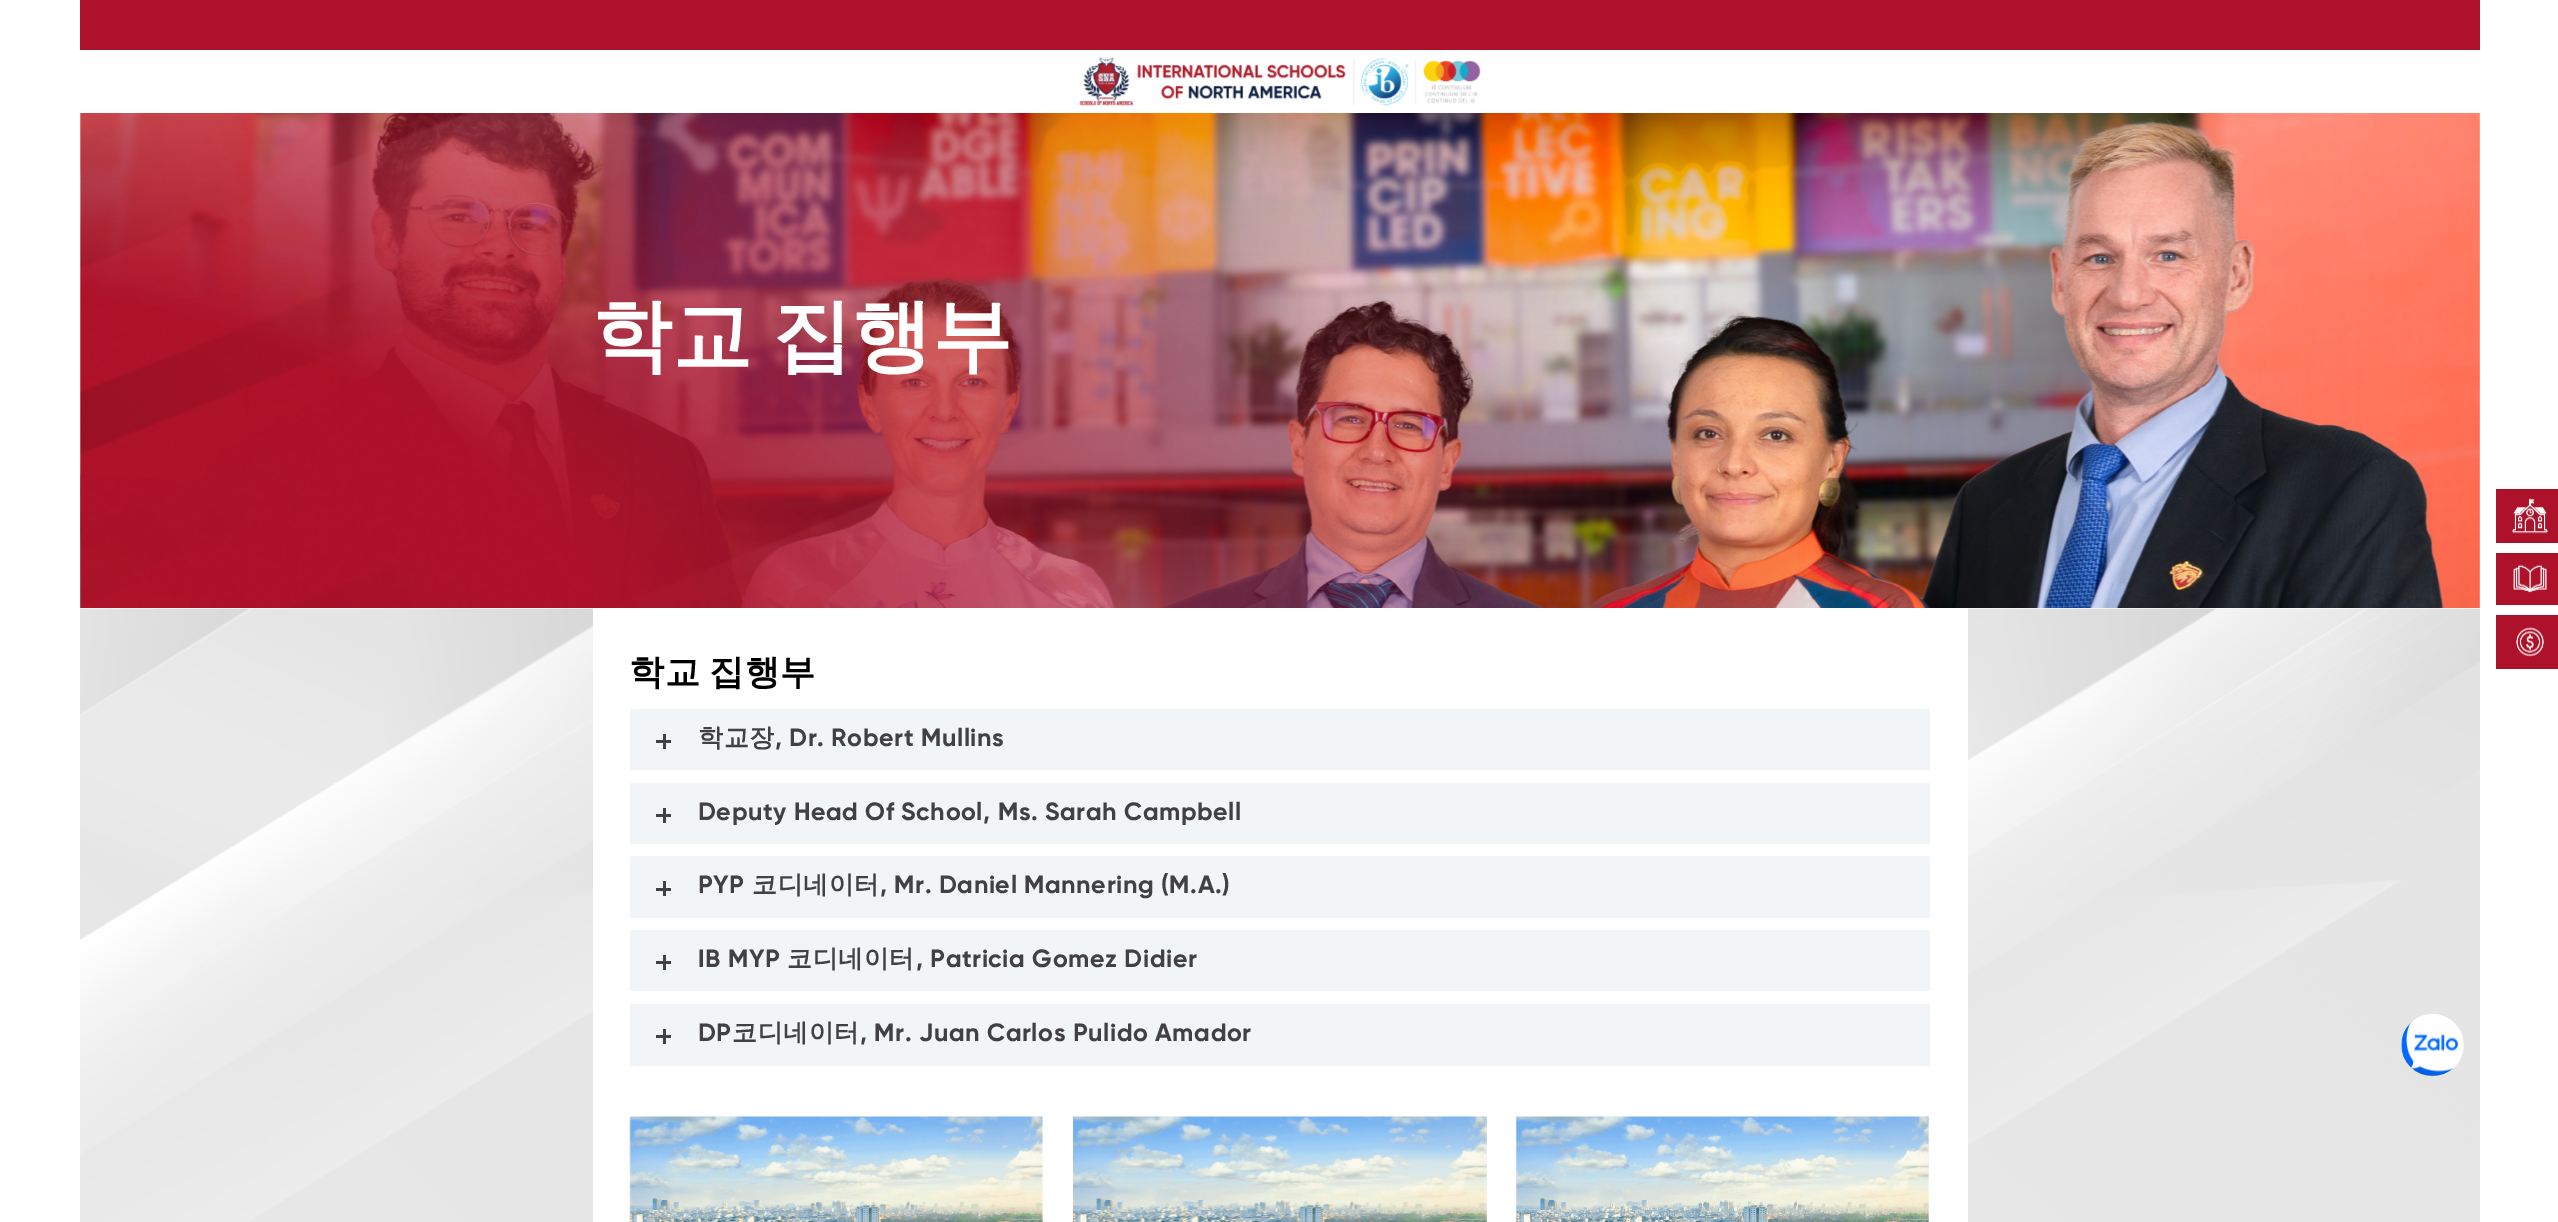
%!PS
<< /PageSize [2558 1222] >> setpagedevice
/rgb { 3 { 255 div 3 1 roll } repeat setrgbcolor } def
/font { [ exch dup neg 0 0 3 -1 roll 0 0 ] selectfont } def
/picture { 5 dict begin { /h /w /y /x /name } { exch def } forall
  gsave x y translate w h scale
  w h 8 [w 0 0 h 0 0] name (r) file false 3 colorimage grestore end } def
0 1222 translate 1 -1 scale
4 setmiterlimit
255 255 255 rgb
0 0 2558 1222 rectfill
173 18 42 rgb
80 0 2400 50 rectfill
(img/1.rgb) 1079 57 402 49 picture
(img/2.rgb) 80 113 2400 495 picture
(img/3.rgb) 80 113 1726 495 picture
(img/4.rgb) 80 608 2400 614 picture
[
  [593 608 1375 458 255 255 255]
  [630 709 1300 61 242 245 247]
  [656 740 15 3 65 64 66]
  [663 734 3 15 65 64 66]
  [630 783 1300 61 242 245 247]
  [656 814 15 3 65 64 66]
  [663 808 3 15 65 64 66]
  [630 856 1300 62 242 245 247]
  [656 888 15 3 65 64 66]
  [663 881 3 15 65 64 66]
  [630 930 1300 61 242 245 247]
  [656 961 15 3 65 64 66]
  [663 955 3 15 65 64 66]
  [630 1004 1300 62 242 245 247]
  [656 1035 15 3 65 64 66]
  [663 1029 3 15 65 64 66]
  [593 1066 1375 156 255 255 255]
] { aload pop rgb rectfill } forall
(img/5.rgb) 629 1116 414 106 picture
(img/6.rgb) 1073 1116 414 106 picture
(img/7.rgb) 1516 1116 413 106 picture
173 18 42 rgb
2496 489 62 54 rectfill
(img/8.rgb) 2512 498 36 36 picture
2496 553 62 52 rectfill
(img/9.rgb) 2513 565 34 28 picture
2496 615 62 54 rectfill
(img/10.rgb) 2516 627 28 30 picture
(img/11.rgb) 2401 1014 63 63 picture
/WenQuanYiZenHei-Bold 80 font
255 255 255 rgb
592 363 moveto -4 0 32 (학교 집행부) widthshow
/WenQuanYiZenHei-Bold 35 font
0 0 0 rgb
629 684 moveto -2 0 32 0.6 0 (학교 집행부) awidthshow
/WenQuanYiZenHei-Bold 25 font
65 64 66 rgb
698 746 moveto 0.6 0 (학교장) ashow
/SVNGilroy-Bold 25 font
775 746 moveto 0.6 0 (, Dr. Robert Mullins) ashow
698 820 moveto 0.6 0 (Deputy Head Of School, Ms. Sarah Campbell) ashow
698 893 moveto 0.6 0 (PYP) ashow
/WenQuanYiZenHei-Bold 25 font
752 893 moveto 0.6 0 (코디네이터) ashow
/SVNGilroy-Bold 25 font
880 893 moveto 0.6 0 (, Mr. Daniel Mannering \(M.A.\)) ashow
698 967 moveto 0.6 0 (IB MYP) ashow
/WenQuanYiZenHei-Bold 25 font
787 967 moveto 0.6 0 (코디네이터) ashow
/SVNGilroy-Bold 25 font
916 967 moveto 0.6 0 (, Patricia Gomez Didier) ashow
698 1041 moveto 0.6 0 (DP) ashow
/WenQuanYiZenHei-Bold 25 font
732 1041 moveto 0.6 0 (코디네이터) ashow
/SVNGilroy-Bold 25 font
860 1041 moveto 0.6 0 (, Mr. Juan Carlos Pulido Amador) ashow
showpage
